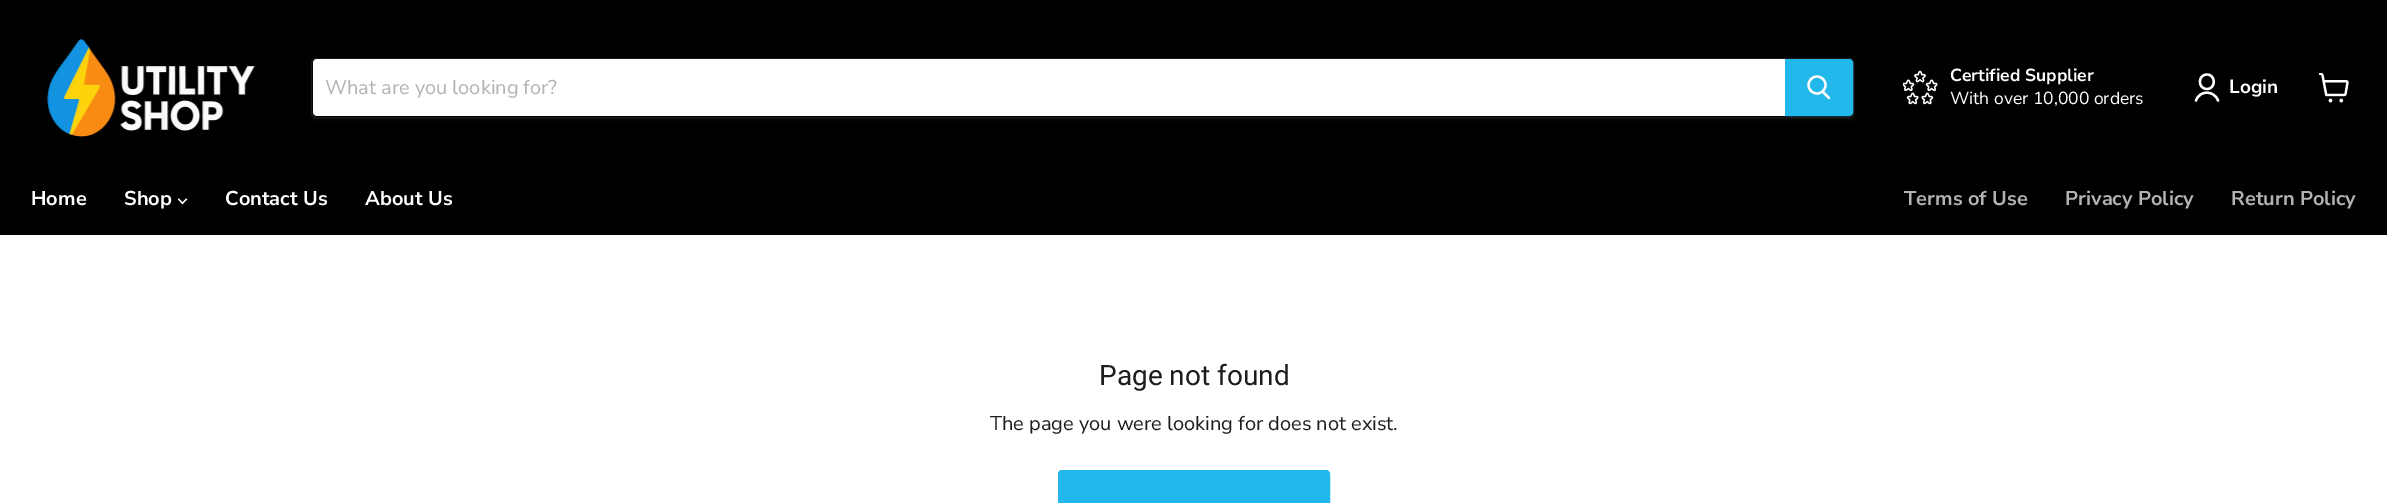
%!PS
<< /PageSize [2387 503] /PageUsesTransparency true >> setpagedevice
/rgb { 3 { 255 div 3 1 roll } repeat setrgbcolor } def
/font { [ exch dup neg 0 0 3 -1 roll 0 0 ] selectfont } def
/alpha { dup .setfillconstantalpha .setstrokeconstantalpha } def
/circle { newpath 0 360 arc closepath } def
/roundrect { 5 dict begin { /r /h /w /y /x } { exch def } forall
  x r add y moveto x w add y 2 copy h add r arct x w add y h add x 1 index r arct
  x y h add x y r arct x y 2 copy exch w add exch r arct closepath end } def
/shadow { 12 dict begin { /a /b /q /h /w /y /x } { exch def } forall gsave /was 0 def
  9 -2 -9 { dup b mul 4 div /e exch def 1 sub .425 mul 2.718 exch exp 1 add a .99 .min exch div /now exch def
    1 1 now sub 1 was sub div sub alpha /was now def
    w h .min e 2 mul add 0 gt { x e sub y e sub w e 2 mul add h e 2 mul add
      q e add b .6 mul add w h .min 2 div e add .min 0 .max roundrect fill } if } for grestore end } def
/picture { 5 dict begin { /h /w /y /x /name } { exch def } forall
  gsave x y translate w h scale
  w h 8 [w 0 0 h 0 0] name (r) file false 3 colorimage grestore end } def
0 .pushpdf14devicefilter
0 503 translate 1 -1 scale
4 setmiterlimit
255 255 255 rgb
0 0 2387 503 rectfill
0 0 0 rgb
0 0 2387 235 rectfill
(img/1.rgb) 46 38 209 99 picture
gsave
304 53 moveto 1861 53 lineto 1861 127 lineto 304 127 lineto closepath 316 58 moveto 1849 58 lineto 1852 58 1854 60 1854 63 curveto 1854 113 lineto 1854 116 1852 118 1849 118 curveto 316 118 lineto 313 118 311 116 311 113 curveto 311 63 lineto 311 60 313 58 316 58 curveto closepath eoclip newpath
128 128 128 rgb
311 60 1543 60 5 2 0.11 shadow
grestore
0.2 alpha
128 128 128 rgb
311.5 58.5 1542 59 4.5 roundrect stroke
1 alpha
255 255 255 rgb
317 59 moveto 1785 59 lineto 1785 116 lineto 317 116 lineto 315 116 313 114 313 112 curveto 313 63 lineto 313 61 315 59 317 59 curveto closepath fill
35 184 235 rgb
1785.5 59.5 moveto 1849 59.5 lineto 1851 59.5 1852.5 61 1852.5 63 curveto 1852.5 112 lineto 1852.5 114 1851 115.5 1849 115.5 curveto 1785.5 115.5 lineto closepath gsave fill grestore
stroke
255 255 255 rgb
2.2 setlinewidth
1 setlinecap
1829 98 moveto 1823 92 lineto stroke
0 setlinecap
1817 85 8.5 circle stroke
(img/2.rgb) 1903 70 35 35 picture
2.3 setlinewidth
1 setlinecap
1 setlinejoin
2207 89 moveto 2216 89 2216 74.5 2207 74.5 curveto 2197.5 74.5 2197.5 89 2207 89 curveto closepath 2218 100.5 moveto 2214 90 2199.5 90 2196 100.5 curveto stroke
(img/3.rgb) 2319 73 30 30 picture
(img/4.rgb) 178 198 10 7 picture
35 184 235 rgb
1058.5 470.5 271 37 3.5 roundrect gsave fill grestore
1 setlinewidth
0 setlinecap
0 setlinejoin
stroke
/NunitoSans-Regular 20 font
179 179 179 rgb
325 94 moveto (What are you looking for?) show
/NunitoSans-Bold 17.5 font
255 255 255 rgb
1950 81 moveto (Certified Supplier) show
/NunitoSans-Regular 17.5 font
1950 104 moveto (With over 10,000 orders) show
/NunitoSans-Bold 19 font
2229 93 moveto (Login) show
/NunitoSans-Bold 20 font
[
  [(Home) 31 205]
  [(Shop) 124 205]
  [(Contact Us) 225 205]
  [(About Us) 365 205]
] { aload pop moveto show } forall
179 179 179 rgb
[
  [(Terms of Use) 1904 205]
  [(Privacy Policy) 2065 205]
  [(Return Policy) 2231 205]
] { aload pop moveto show } forall
/Roboto-Regular 28 font
29 29 29 rgb
1099 385 moveto (Page not found) show
/NunitoSans-Regular 20 font
990 430 moveto (The page you were looking for does not exist.) show
.poppdf14devicefilter showpage
